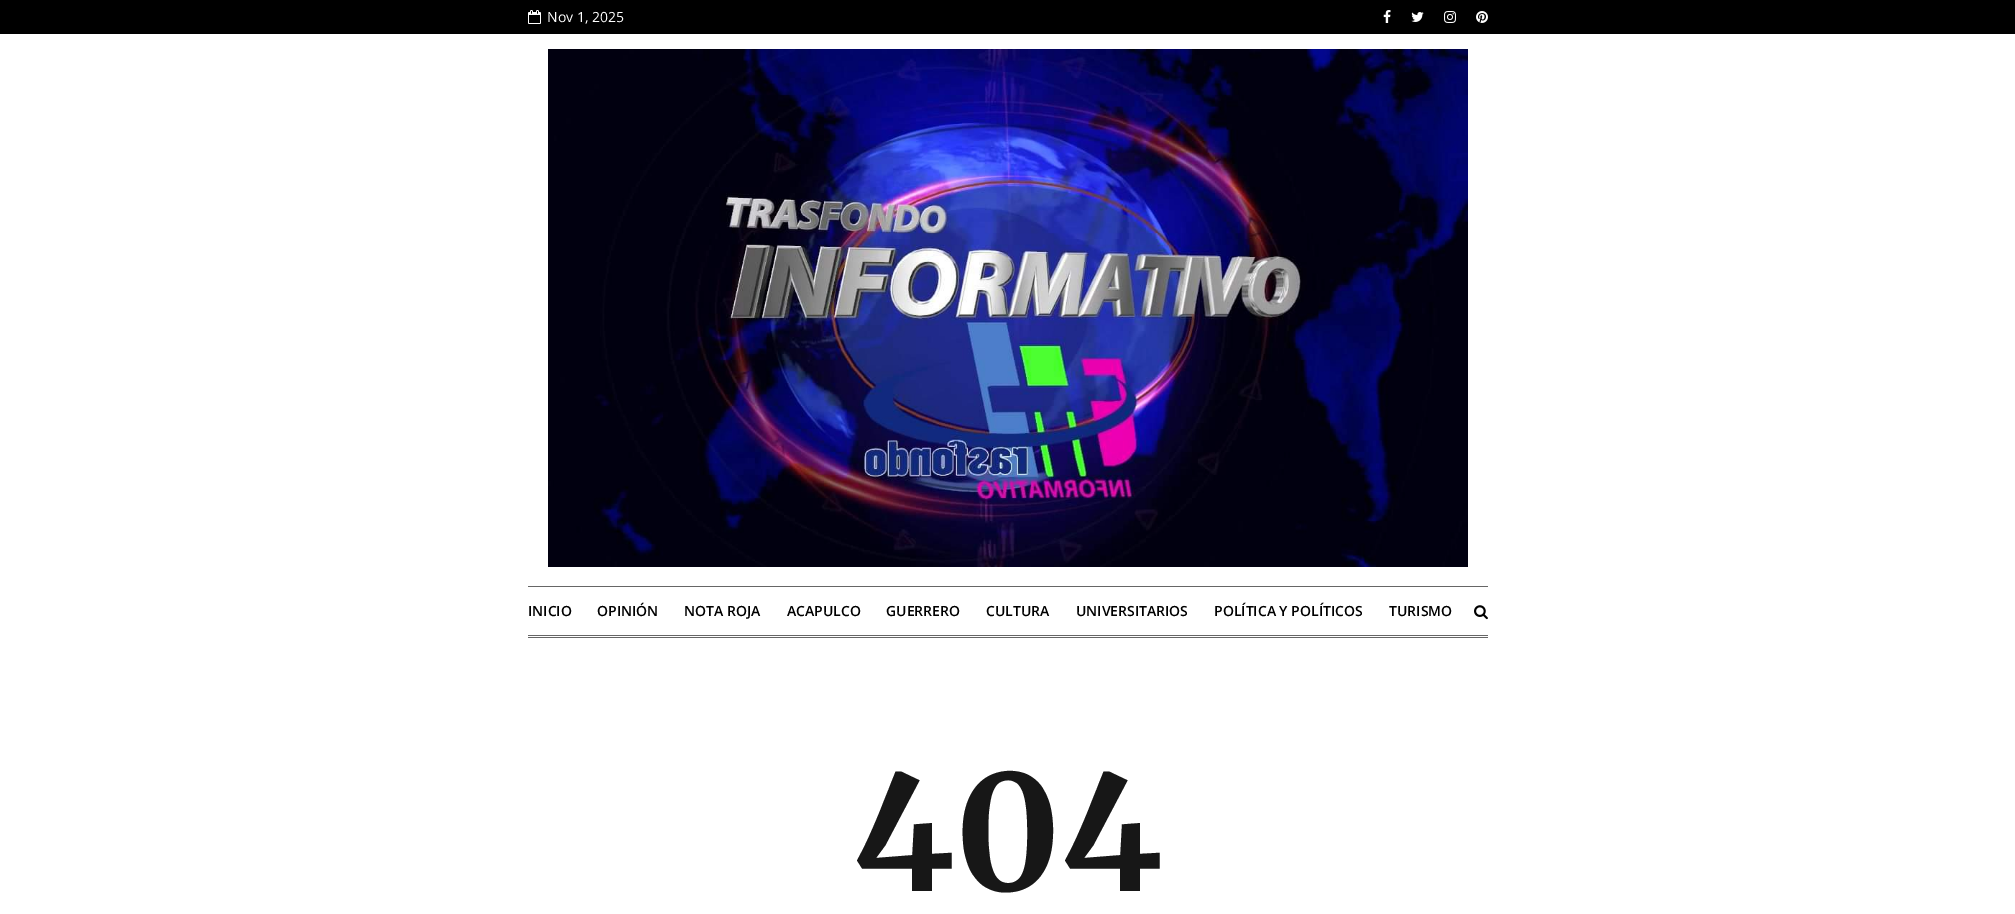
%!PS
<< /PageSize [2015 914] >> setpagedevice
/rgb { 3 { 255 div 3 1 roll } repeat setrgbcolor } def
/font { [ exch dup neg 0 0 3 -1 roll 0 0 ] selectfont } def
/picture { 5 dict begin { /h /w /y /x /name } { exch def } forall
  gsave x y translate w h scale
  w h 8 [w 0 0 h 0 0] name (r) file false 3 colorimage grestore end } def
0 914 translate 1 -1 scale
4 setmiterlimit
255 255 255 rgb
0 0 2015 914 rectfill
0 0 0 rgb
0 0 2015 34 rectfill
(img/1.rgb) 528 10 13 14 picture
(img/2.rgb) 1383 10 8 13 picture
(img/3.rgb) 1411 12 13 10 picture
(img/4.rgb) 1444 11 12 12 picture
(img/5.rgb) 1476 11 12 12 picture
(img/6.rgb) 548 49 920 518 picture
[
  [528 586 960 1 102 102 102]
  [528 635 960 1 102 102 102]
  [528 637 960 1 102 102 102]
] { aload pop rgb rectfill } forall
(img/7.rgb) 1474 605 14 15 picture
/OpenSans-Regular 14 font
255 255 255 rgb
547 22 moveto (Nov 1, 2025) show
/OpenSans-SemiBold 14 font
0 0 0 rgb
[
  [(INICIO) 528 616]
  [(OPINIÓN) 597 616]
  [(NOTA ROJA) 684 616]
  [(ACAPULCO) 787 616]
  [(GUERRERO) 886 616]
  [(CULTURA) 986 616]
  [(UNIVERSITARIOS) 1076 616]
  [(POLÍTICA Y POLÍTICOS) 1214 616]
  [(TURISMO) 1389 616]
] { aload pop moveto show } forall
/Merriweather-Bold 160 font
23 23 23 rgb
853 891 moveto (404) show
showpage
